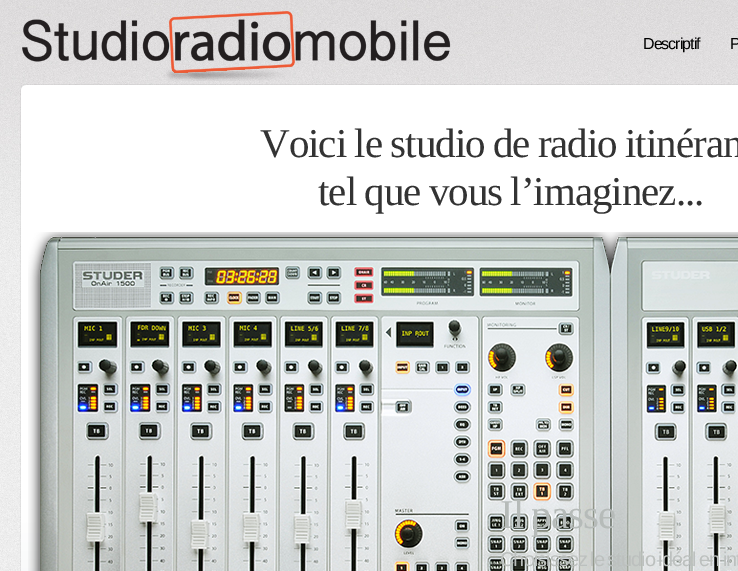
%!PS
<< /PageSize [738 571] >> setpagedevice
/rgb { 3 { 255 div 3 1 roll } repeat setrgbcolor } def
/font { [ exch dup neg 0 0 3 -1 roll 0 0 ] selectfont } def
/picture { 5 dict begin { /h /w /y /x /name } { exch def } forall
  gsave x y translate w h scale
  w h 8 [w 0 0 h 0 0] name (r) file false 3 colorimage grestore end } def
0 571 translate 1 -1 scale
4 setmiterlimit
255 255 255 rgb
0 0 738 571 rectfill
(img/1.rgb) 0 0 738 571 picture
(img/2.rgb) 22 11 429 70 picture
(img/3.rgb) 20 84 718 487 picture
(img/4.rgb) 28 232 710 339 picture
/LiberationSans-Regular 16 font
0 0 0 rgb
643 49 moveto -1 0 (Descriptif) ashow
730 49 moveto -1 0 (P) ashow
/LiberationSerif-Regular 41 font
51 51 51 rgb
260 157 moveto -1 0 32 -1 0 (Voici le studio de radio itinéran) awidthshow
318 205 moveto -1 0 32 -1 0 (tel que vous l’imaginez...) awidthshow
182 187 185 rgb
500 528 moveto -1 0 32 -1 0 (Il passe) awidthshow
/LiberationSans-Regular 20 font
188 192 190 rgb
500 566 moveto -1 0 32 -1 0 (Choisissez le studio idéal en int) awidthshow
showpage
